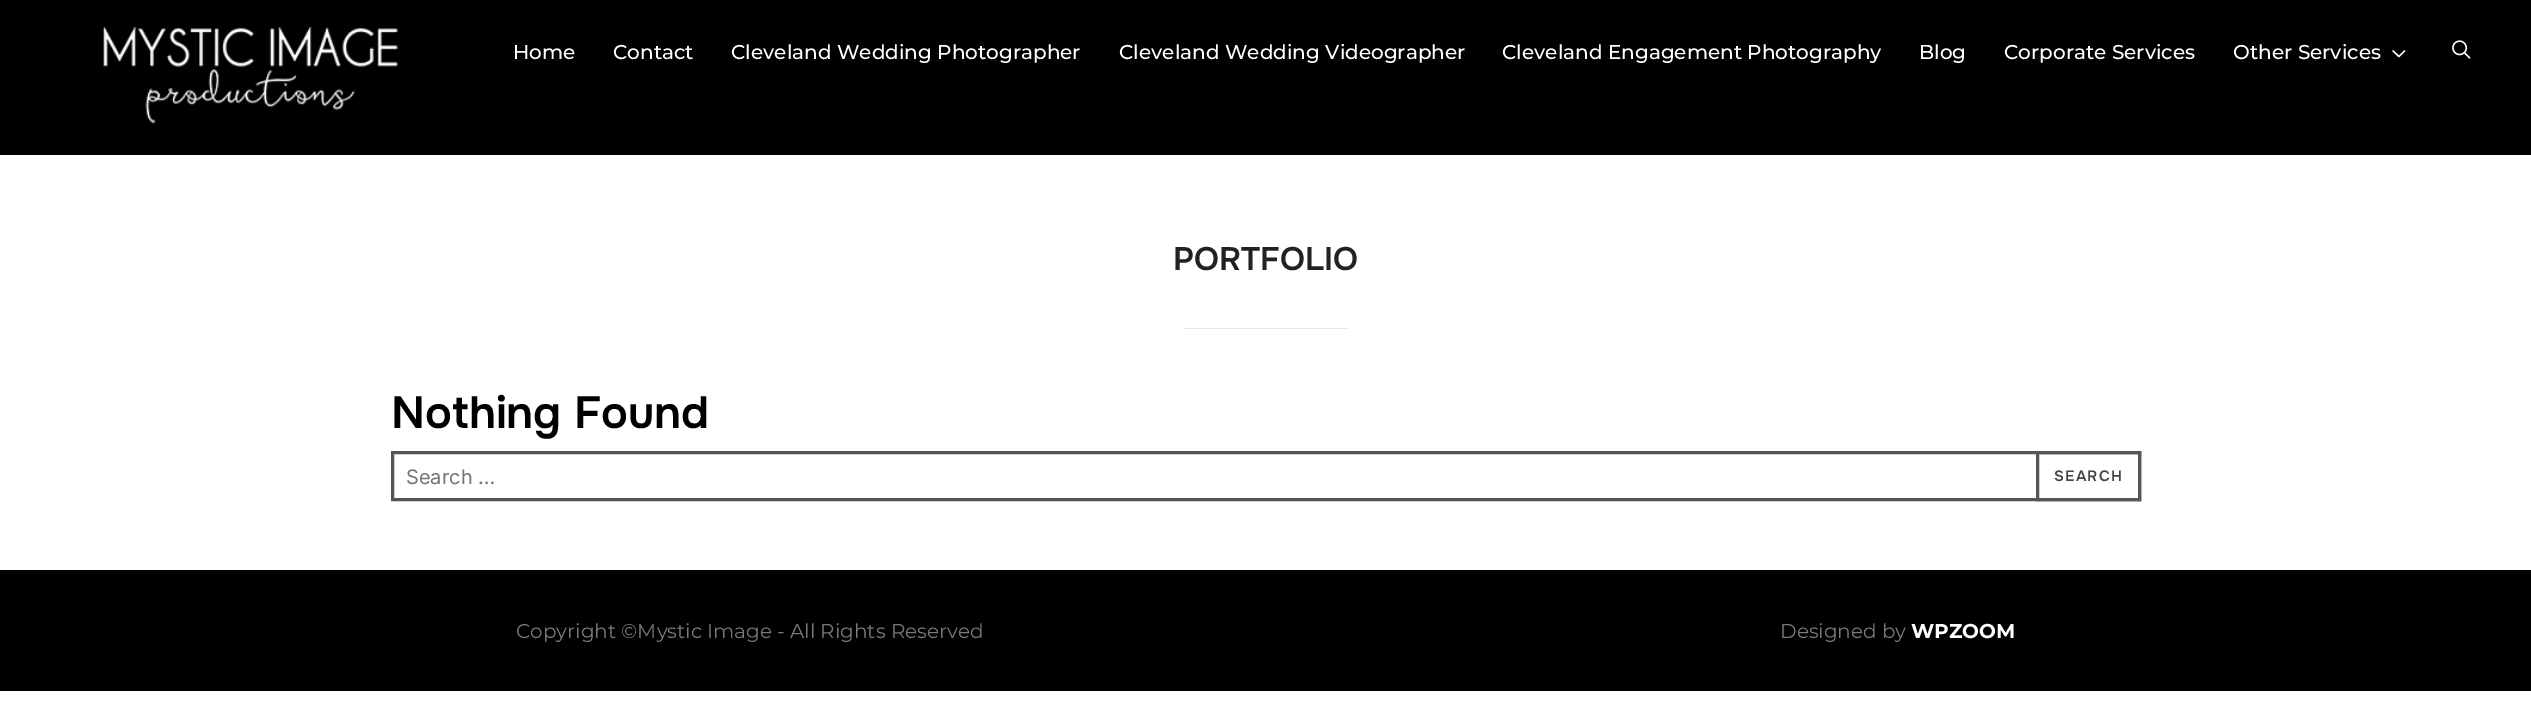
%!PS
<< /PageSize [2531 708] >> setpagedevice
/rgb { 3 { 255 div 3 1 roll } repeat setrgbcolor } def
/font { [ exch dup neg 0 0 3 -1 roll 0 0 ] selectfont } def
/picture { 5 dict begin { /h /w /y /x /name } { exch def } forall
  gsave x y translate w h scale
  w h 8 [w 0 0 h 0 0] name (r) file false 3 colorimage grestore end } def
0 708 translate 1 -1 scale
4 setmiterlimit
255 255 255 rgb
0 0 2531 708 rectfill
0 0 0 rgb
0 0 2531 155 rectfill
(img/1.rgb) 103 26 295 98 picture
255 255 255 rgb
1.4 setlinewidth
1 setlinecap
1 setlinejoin
2393 51 moveto 2399 56.5 lineto 2404.5 51 lineto stroke
(img/2.rgb) 2452 40 19 19 picture
230 230 230 rgb
1185 328 163 1 rectfill
86 85 85 rgb
3 setlinewidth
0 setlinecap
0 setlinejoin
392.5 452.5 1747 47 rectstroke
2037.5 452.5 102 47 rectstroke
0 0 0 rgb
0 570 2531 121 rectfill
/Montserrat-Medium 20 font
255 255 255 rgb
[
  [(Home) 513 59]
  [(Contact) 613 59]
  [(Cleveland Wedding Photographer) 731 59]
  [(Cleveland Wedding Videographer) 1119 59]
  [(Cleveland Engagement Photography) 1502 59]
  [(Blog) 1919 59]
  [(Corporate Services) 2004 59]
  [(Other Services) 2233 59]
] { aload pop moveto show } forall
/Onest-SemiBold 32.5 font
34 34 34 rgb
1173 270 moveto (PORTFOLIO) show
/Onest-SemiBold 45 font
0 0 0 rgb
391 428 moveto (Nothing Found) show
/Inter-Regular 20 font
117 117 117 rgb
406 484 moveto (Search …) show
/Onest-SemiBold 15 font
68 68 68 rgb
2054 481 moveto 1.25 0 (SEARCH) ashow
/Montserrat-Regular 20 font
120 120 127 rgb
516 638 moveto (Copyright ©Mystic Image - All Rights Reserved) show
1780 638 moveto (Designed by) show
/Montserrat-Bold 20 font
255 255 255 rgb
1911 638 moveto (WPZOOM) show
showpage
